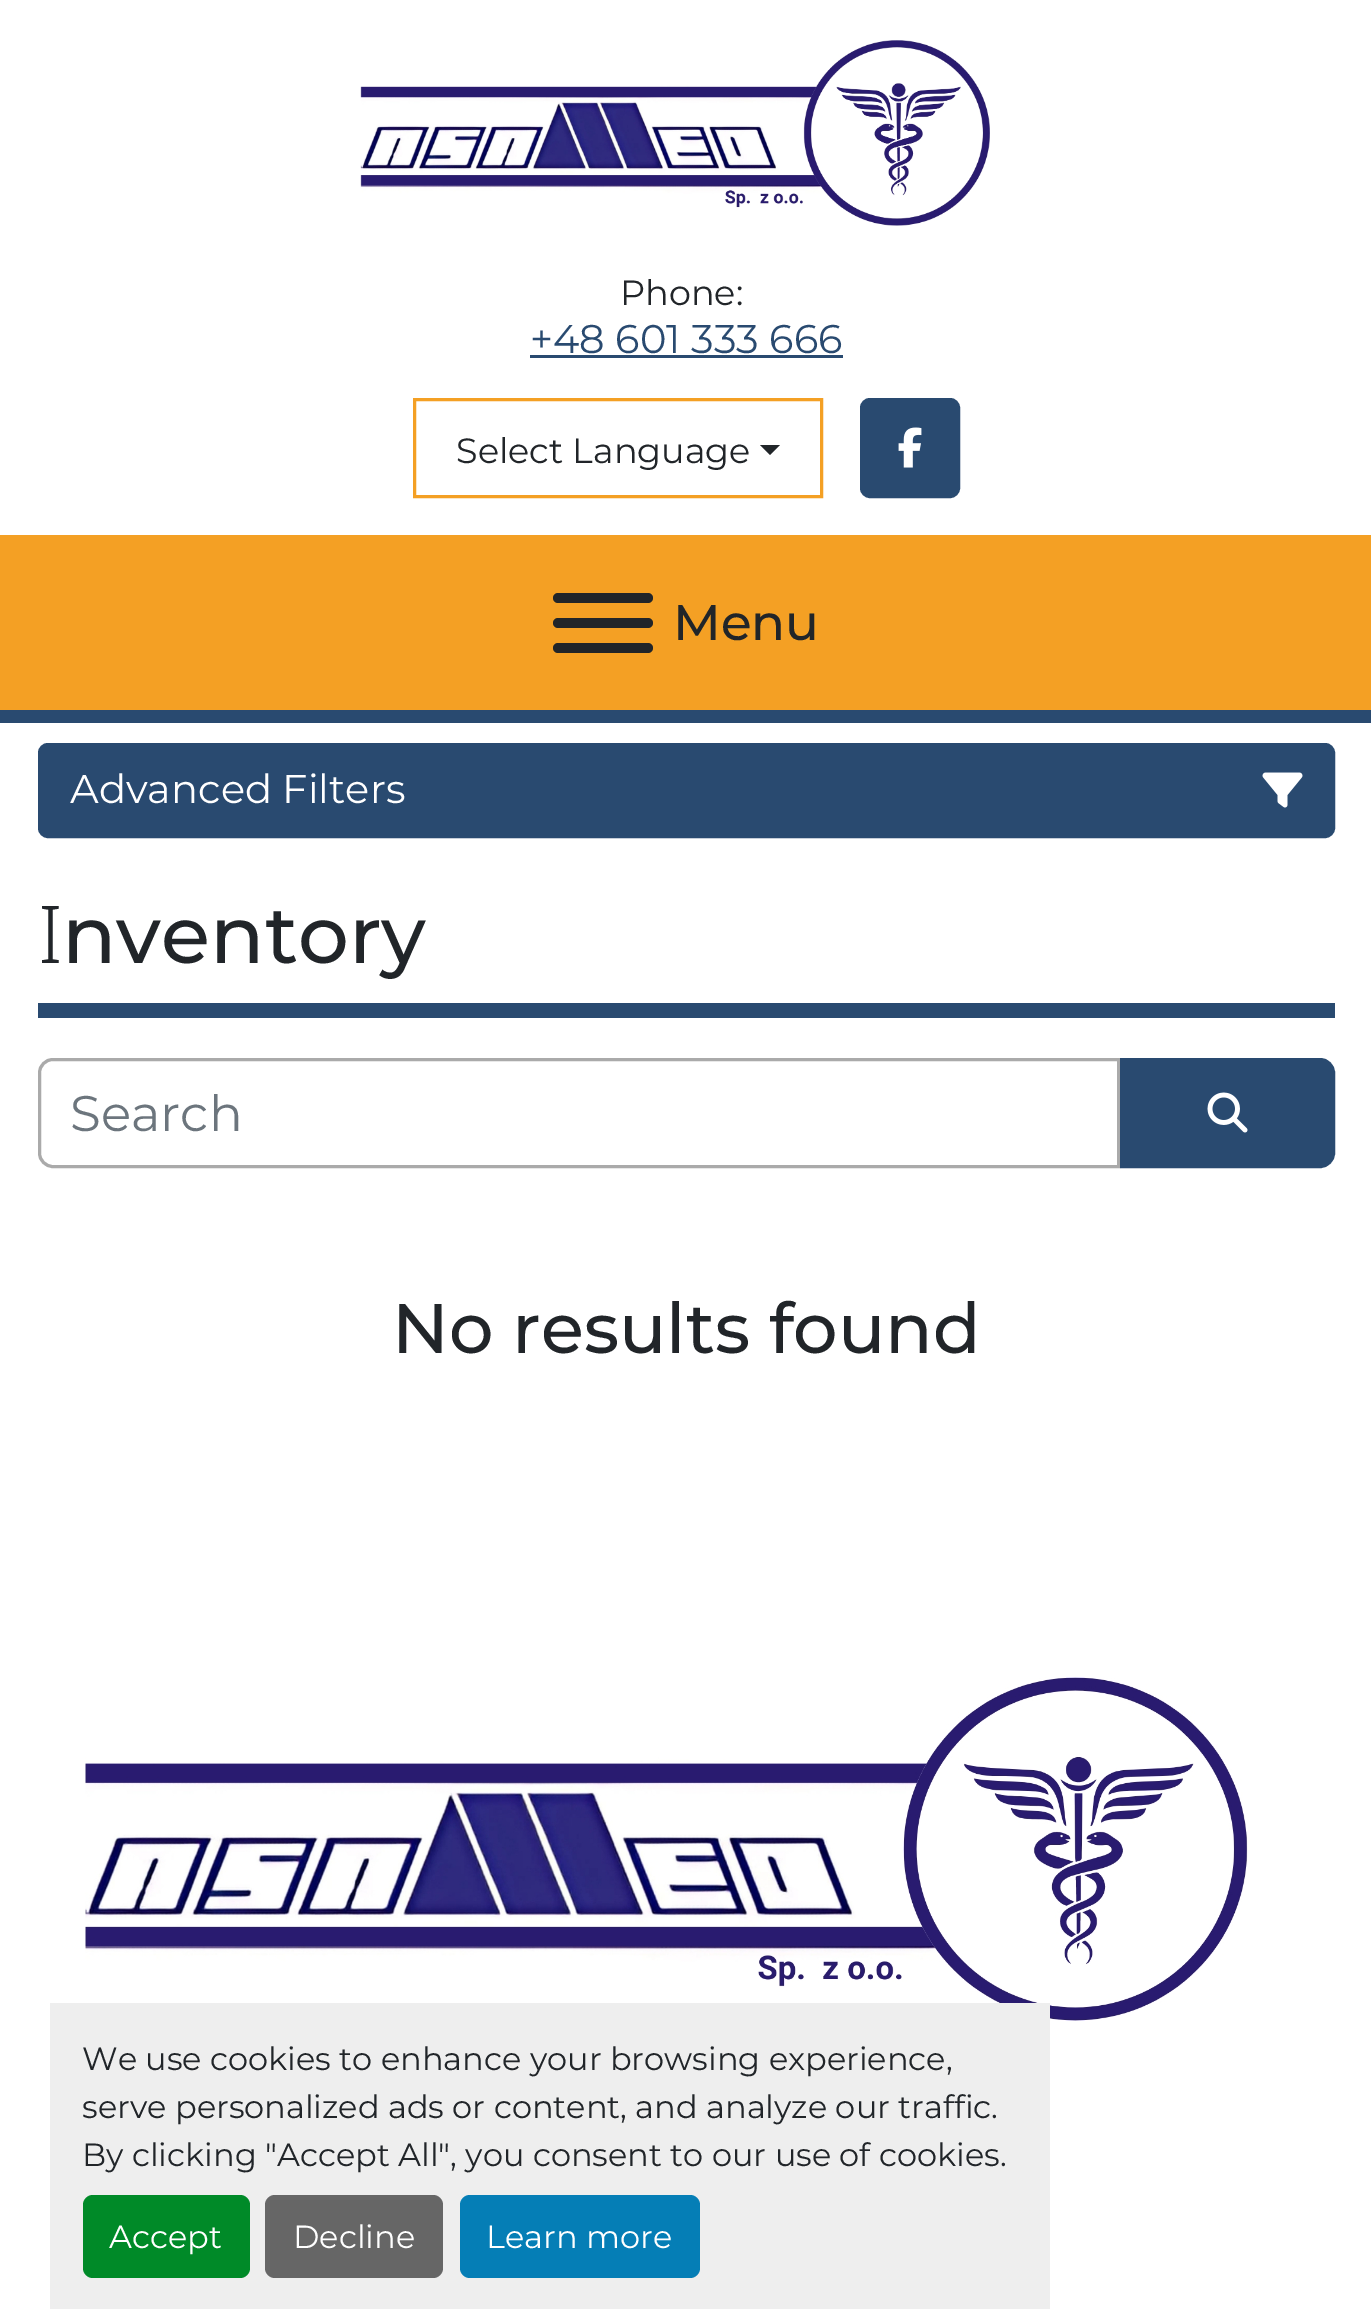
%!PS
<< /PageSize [1371 2309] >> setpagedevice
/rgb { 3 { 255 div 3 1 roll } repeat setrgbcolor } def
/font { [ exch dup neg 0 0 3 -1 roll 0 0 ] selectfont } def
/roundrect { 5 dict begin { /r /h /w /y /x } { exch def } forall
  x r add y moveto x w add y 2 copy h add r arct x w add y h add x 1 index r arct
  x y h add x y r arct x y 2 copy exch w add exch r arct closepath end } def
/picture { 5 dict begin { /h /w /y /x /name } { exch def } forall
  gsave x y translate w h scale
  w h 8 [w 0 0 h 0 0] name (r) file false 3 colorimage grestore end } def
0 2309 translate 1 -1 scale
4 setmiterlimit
255 255 255 rgb
0 0 1371 2309 rectfill
(img/1.rgb) 360 40 630 186 picture
41 74 112 rgb
530 355 313 3 rectfill
244 160 36 rgb
3 setlinewidth
414.5 399.5 407 97 rectstroke
33 37 41 rgb
760 445 moveto 780 445 lineto 770 455 lineto closepath fill
41 74 112 rgb
861.5 399.5 97 97 8.5 roundrect gsave fill grestore
stroke
(img/2.rgb) 898 427 24 41 picture
244 160 36 rgb
0 535 1371 175 rectfill
33 37 41 rgb
553 618 100 10 5 roundrect fill
553 593 100 10 5 roundrect fill
553 643 100 10 5 roundrect fill
41 74 112 rgb
0 710 1371 13 rectfill
39.5 744.5 1294 92 8.5 roundrect gsave fill grestore
stroke
(img/3.rgb) 1262 772 41 36 picture
38 1003 1297 15 rectfill
170 170 170 rgb
53 1059.5 moveto 1118.5 1059.5 lineto 1118.5 1166.5 lineto 53 1166.5 lineto 45.5 1166.5 39.5 1160.5 39.5 1153 curveto 39.5 1073 lineto 39.5 1065.5 45.5 1059.5 53 1059.5 curveto closepath stroke
41 74 112 rgb
1121.5 1059.5 moveto 1320 1059.5 lineto 1327.5 1059.5 1333.5 1065.5 1333.5 1073 curveto 1333.5 1153 lineto 1333.5 1160.5 1327.5 1166.5 1320 1166.5 curveto 1121.5 1166.5 lineto closepath gsave fill grestore
stroke
(img/4.rgb) 1207 1092 41 41 picture
(img/5.rgb) 85 1677 1163 344 picture
238 238 238 rgb
50 2003 1000 306 rectfill
0 138 40 rgb
83 2195 167 83 10 roundrect fill
102 102 102 rgb
265 2195 178 83 10 roundrect fill
5 126 182 rgb
460 2195 240 83 10 roundrect fill
/Montserrat-Thin 35 font
33 37 41 rgb
620 305 moveto (Phone:) show
/Montserrat-Thin 40 font
41 74 112 rgb
530 353 moveto (+48 601 333 666) show
/Montserrat-Thin 35 font
33 37 41 rgb
456 463 moveto (Select Language) show
/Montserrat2-Thin 50 font
673 640 moveto (Menu) show
/Montserrat-Thin 40 font
255 255 255 rgb
70 803 moveto (Advanced Filters) show
/NotoSans-Light 80 font
33 37 41 rgb
38 963 moveto (I) show
/Montserrat2-Thin 80 font
62 963 moveto (nventory) show
/Montserrat-Thin 50 font
108 117 125 rgb
70 1131 moveto (Search) show
/Montserrat2-Thin 70 font
33 37 41 rgb
392 1353 moveto (No results found) show
/Montserrat-Thin 32 font
[
  [(We use cookies to enhance your browsing experience,) 82 2070]
  [(serve personalized ads or content, and analyze our traffic.) 82 2118]
  [(By clicking "Accept All", you consent to our use of cookies.) 82 2166]
] { aload pop moveto show } forall
255 255 255 rgb
[
  [(Accept) 109 2248]
  [(Decline) 293 2248]
  [(Learn more) 486 2248]
] { aload pop moveto show } forall
showpage
